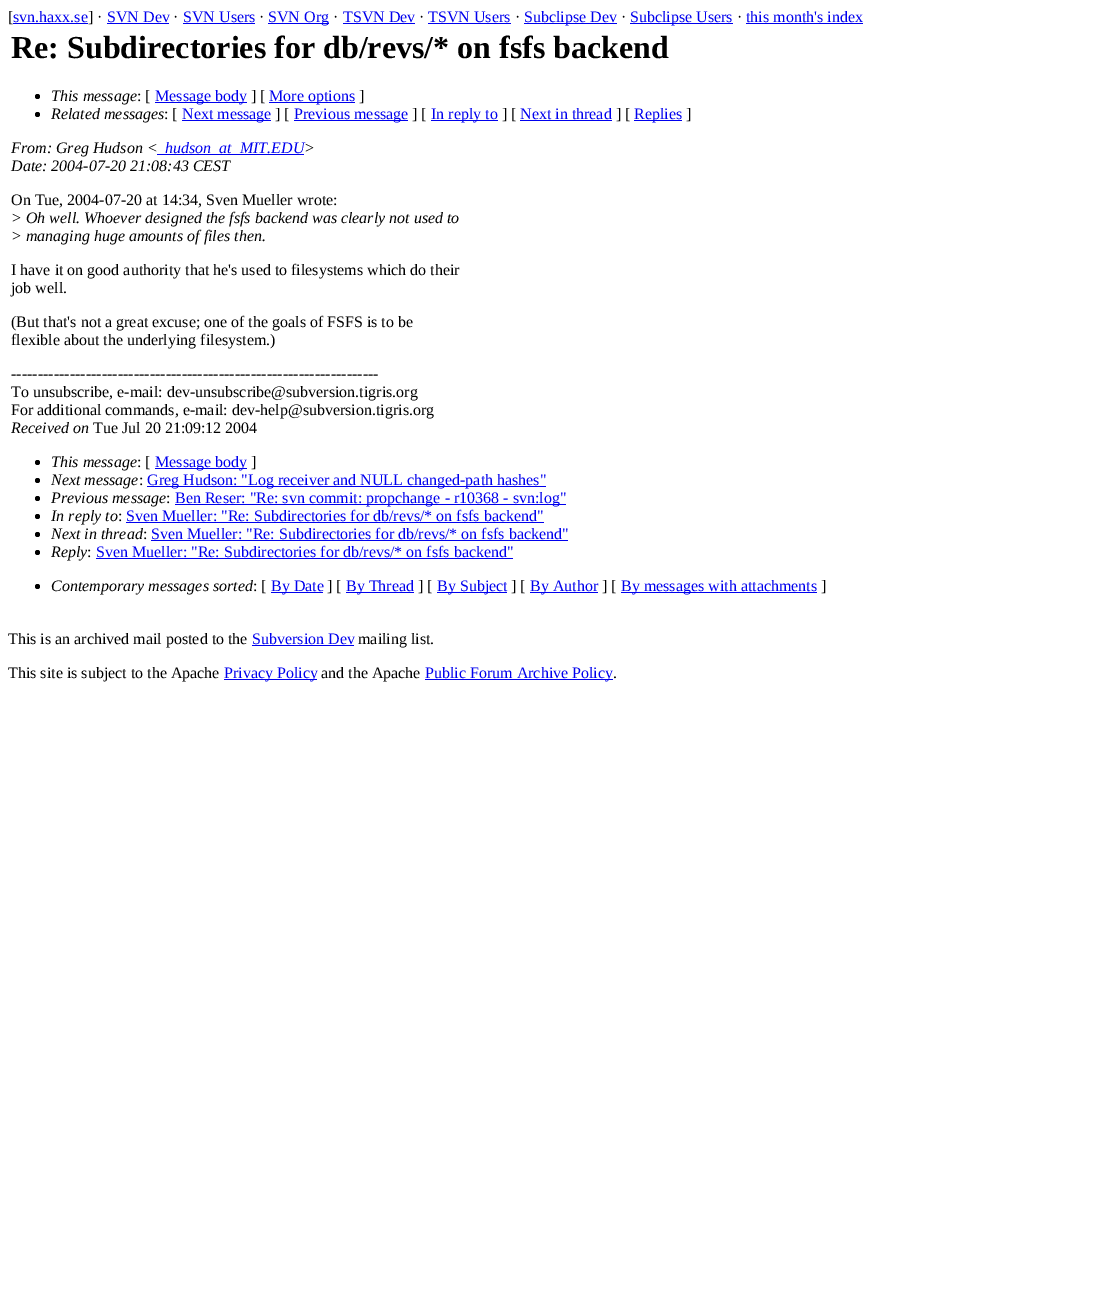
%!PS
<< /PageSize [1096 1308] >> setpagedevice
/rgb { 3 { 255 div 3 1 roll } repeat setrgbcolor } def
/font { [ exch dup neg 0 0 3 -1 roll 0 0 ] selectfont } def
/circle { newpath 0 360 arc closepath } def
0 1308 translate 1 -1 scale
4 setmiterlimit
255 255 255 rgb
0 0 1096 1308 rectfill
[
  [13 23 75 1 0 0 238]
  [107 23 62 1 0 0 238]
  [183 23 72 1 0 0 238]
  [268 23 61 1 0 0 238]
  [343 23 72 1 0 0 238]
  [428 23 83 1 0 0 238]
  [524 23 93 1 0 0 238]
  [630 23 103 1 0 0 238]
  [746 23 117 1 0 0 238]
] { aload pop rgb rectfill } forall
0 0 0 rgb
37.5 96.5 2.5 circle fill
0 0 238 rgb
155 102 92 1 rectfill
269 102 86 1 rectfill
0 0 0 rgb
37.5 114.5 2.5 circle fill
[
  [182 120 89 1 0 0 238]
  [294 120 114 1 0 0 238]
  [431 120 67 1 0 0 238]
  [520 120 92 1 0 0 238]
  [634 120 48 1 0 0 238]
  [157 154 147 1 0 0 238]
] { aload pop rgb rectfill } forall
0 0 0 rgb
37.5 462.5 2.5 circle fill
0 0 238 rgb
155 468 92 1 rectfill
0 0 0 rgb
37.5 480.5 2.5 circle fill
0 0 238 rgb
147 486 399 1 rectfill
0 0 0 rgb
37.5 498.5 2.5 circle fill
0 0 238 rgb
175 504 391 1 rectfill
0 0 0 rgb
37.5 516.5 2.5 circle fill
0 0 238 rgb
126 522 418 1 rectfill
0 0 0 rgb
37.5 534.5 2.5 circle fill
0 0 238 rgb
151 540 417 1 rectfill
0 0 0 rgb
37.5 552.5 2.5 circle fill
0 0 238 rgb
96 558 417 1 rectfill
0 0 0 rgb
37.5 586.5 2.5 circle fill
[
  [271 592 52 1 0 0 238]
  [346 592 68 1 0 0 238]
  [437 592 70 1 0 0 238]
  [530 592 68 1 0 0 238]
  [621 592 196 1 0 0 238]
  [252 645 102 1 0 0 238]
  [224 679 93 1 0 0 238]
  [425 679 188 1 0 0 238]
] { aload pop rgb rectfill } forall
/LiberationSerif-Regular 16 font
0 0 0 rgb
8 22 moveto ([) show
0 0 238 rgb
13 22 moveto (svn.haxx.se) show
0 0 0 rgb
88 22 moveto (] ·) show
0 0 238 rgb
107 22 moveto (SVN Dev) show
0 0 0 rgb
173 22 moveto (·) show
0 0 238 rgb
183 22 moveto (SVN Users) show
0 0 0 rgb
259 22 moveto (·) show
0 0 238 rgb
268 22 moveto (SVN Org) show
0 0 0 rgb
333 22 moveto (·) show
0 0 238 rgb
343 22 moveto (TSVN Dev) show
0 0 0 rgb
419 22 moveto (·) show
0 0 238 rgb
428 22 moveto (TSVN Users) show
0 0 0 rgb
515 22 moveto (·) show
0 0 238 rgb
524 22 moveto (Subclipse Dev) show
0 0 0 rgb
621 22 moveto (·) show
0 0 238 rgb
630 22 moveto (Subclipse Users) show
0 0 0 rgb
737 22 moveto (·) show
0 0 238 rgb
746 22 moveto (this month's index) show
/LiberationSerif-Bold 32 font
0 0 0 rgb
11 58 moveto (Re: Subdirectories for db/revs/* on fsfs backend) show
/LiberationSerif-Italic 16 font
51 101 moveto (This message) show
/LiberationSerif-Regular 16 font
137 101 moveto (: [) show
0 0 238 rgb
155 101 moveto (Message body) show
0 0 0 rgb
251 101 moveto (] [) show
0 0 238 rgb
269 101 moveto (More options) show
0 0 0 rgb
359 101 moveto (]) show
/LiberationSerif-Italic 16 font
51 119 moveto (Related messages) show
/LiberationSerif-Regular 16 font
164 119 moveto (: [) show
0 0 238 rgb
182 119 moveto (Next message) show
0 0 0 rgb
275 119 moveto (] [) show
0 0 238 rgb
294 119 moveto (Previous message) show
0 0 0 rgb
412 119 moveto (] [) show
0 0 238 rgb
431 119 moveto (In reply to) show
0 0 0 rgb
502 119 moveto (] [) show
0 0 238 rgb
520 119 moveto (Next in thread) show
0 0 0 rgb
616 119 moveto (] [) show
0 0 238 rgb
634 119 moveto (Replies) show
0 0 0 rgb
686 119 moveto (]) show
/LiberationSerif-Italic 16 font
11 153 moveto (From: Greg Hudson <) show
0 0 238 rgb
165 153 moveto (hudson_at_MIT.EDU) show
0 0 0 rgb
304 153 moveto (>) show
11 171 moveto (Date: 2004-07-20 21:08:43 CEST) show
/LiberationSerif-Regular 16 font
11 205 moveto (On Tue, 2004-07-20 at 14:34, Sven Mueller wrote:) show
/LiberationSerif-Italic 16 font
11 223 moveto (> Oh well. Whoever designed the fsfs backend was clearly not used to) show
11 241 moveto (> managing huge amounts of files then.) show
/LiberationSerif-Regular 16 font
[
  [(I have it on good authority that he's used to filesystems which do their) 11 275]
  [(job well.) 11 293]
  [(\(But that's not a great excuse; one of the goals of FSFS is to be) 11 327]
  [(flexible about the underlying filesystem.\)) 11 345]
  [(---------------------------------------------------------------------) 11 379]
  [(To unsubscribe, e-mail: dev-unsubscribe@subversion.tigris.org) 11 397]
  [(For additional commands, e-mail: dev-help@subversion.tigris.org) 11 415]
] { aload pop moveto show } forall
/LiberationSerif-Italic 16 font
11 433 moveto (Received on) show
/LiberationSerif-Regular 16 font
93 433 moveto (Tue Jul 20 21:09:12 2004) show
/LiberationSerif-Italic 16 font
51 467 moveto (This message) show
/LiberationSerif-Regular 16 font
137 467 moveto (: [) show
0 0 238 rgb
155 467 moveto (Message body) show
0 0 0 rgb
251 467 moveto (]) show
/LiberationSerif-Italic 16 font
51 485 moveto (Next message) show
/LiberationSerif-Regular 16 font
139 485 moveto (:) show
0 0 238 rgb
147 485 moveto (Greg Hudson: "Log receiver and NULL changed-path hashes") show
/LiberationSerif-Italic 16 font
0 0 0 rgb
51 503 moveto (Previous message) show
/LiberationSerif-Regular 16 font
166 503 moveto (:) show
0 0 238 rgb
175 503 moveto (Ben Reser: "Re: svn commit: propchange - r10368 - svn:log") show
/LiberationSerif-Italic 16 font
0 0 0 rgb
51 521 moveto (In reply to) show
/LiberationSerif-Regular 16 font
118 521 moveto (:) show
0 0 238 rgb
126 521 moveto (Sven Mueller: "Re: Subdirectories for db/revs/* on fsfs backend") show
/LiberationSerif-Italic 16 font
0 0 0 rgb
51 539 moveto (Next in thread) show
/LiberationSerif-Regular 16 font
143 539 moveto (:) show
0 0 238 rgb
151 539 moveto (Sven Mueller: "Re: Subdirectories for db/revs/* on fsfs backend") show
/LiberationSerif-Italic 16 font
0 0 0 rgb
51 557 moveto (Reply) show
/LiberationSerif-Regular 16 font
87 557 moveto (:) show
0 0 238 rgb
96 557 moveto (Sven Mueller: "Re: Subdirectories for db/revs/* on fsfs backend") show
/LiberationSerif-Italic 16 font
0 0 0 rgb
51 591 moveto (Contemporary messages sorted) show
/LiberationSerif-Regular 16 font
253 591 moveto (: [) show
0 0 238 rgb
271 591 moveto (By Date) show
0 0 0 rgb
327 591 moveto (] [) show
0 0 238 rgb
346 591 moveto (By Thread) show
0 0 0 rgb
418 591 moveto (] [) show
0 0 238 rgb
437 591 moveto (By Subject) show
0 0 0 rgb
511 591 moveto (] [) show
0 0 238 rgb
530 591 moveto (By Author) show
0 0 0 rgb
602 591 moveto (] [) show
0 0 238 rgb
621 591 moveto (By messages with attachments) show
0 0 0 rgb
821 591 moveto (]) show
8 644 moveto (This is an archived mail posted to the) show
0 0 238 rgb
252 644 moveto (Subversion Dev) show
0 0 0 rgb
358 644 moveto (mailing list.) show
8 678 moveto (This site is subject to the Apache) show
0 0 238 rgb
224 678 moveto (Privacy Policy) show
0 0 0 rgb
321 678 moveto (and the Apache) show
0 0 238 rgb
425 678 moveto (Public Forum Archive Policy) show
0 0 0 rgb
613 678 moveto (.) show
showpage
